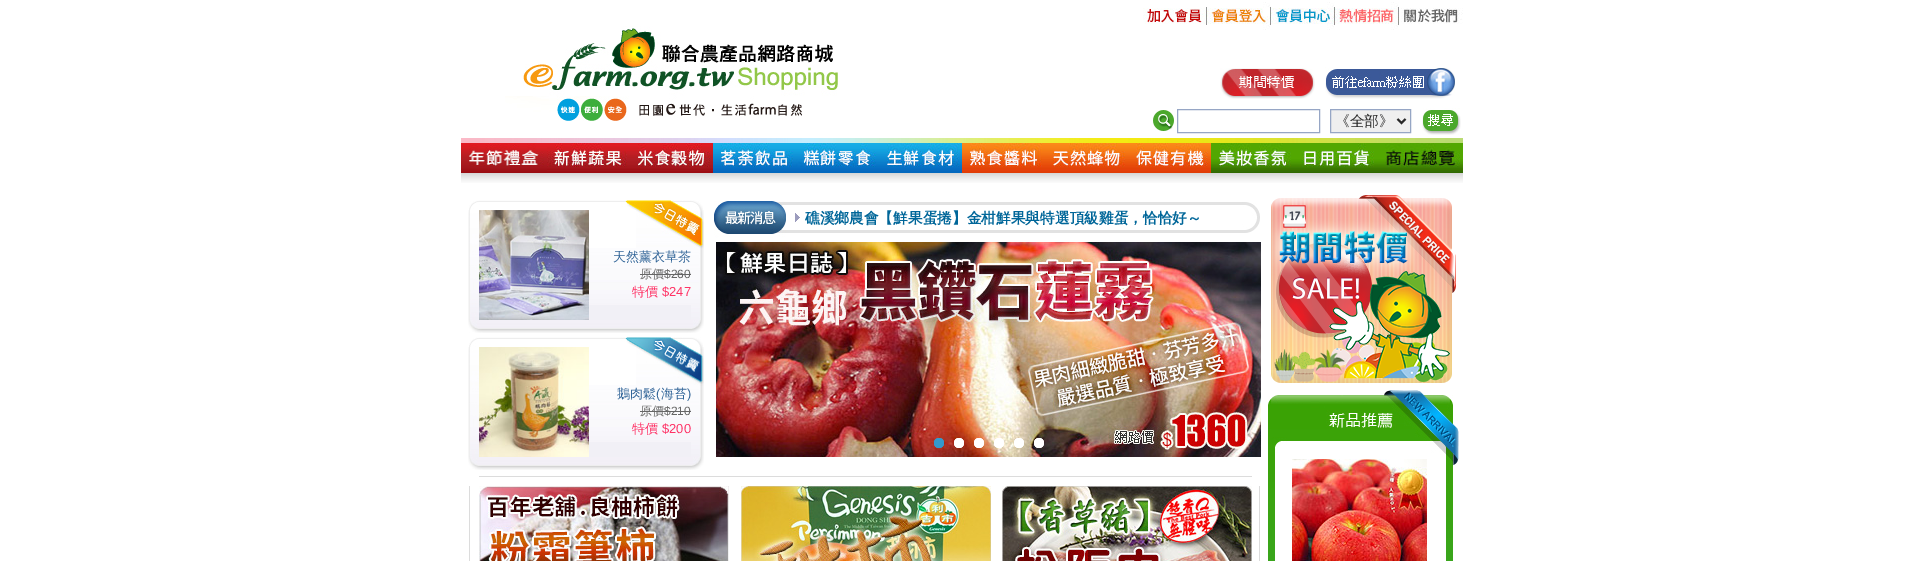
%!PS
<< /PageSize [1924 561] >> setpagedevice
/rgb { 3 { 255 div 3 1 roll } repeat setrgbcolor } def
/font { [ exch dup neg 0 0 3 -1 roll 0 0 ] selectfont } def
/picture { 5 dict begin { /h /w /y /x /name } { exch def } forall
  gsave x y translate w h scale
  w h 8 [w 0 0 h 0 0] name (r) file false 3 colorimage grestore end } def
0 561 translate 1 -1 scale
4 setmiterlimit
255 255 255 rgb
0 0 1924 561 rectfill
(img/1.rgb) 523 26 315 70 picture
(img/2.rgb) 505 96 297 25 picture
(img/3.rgb) 1143 7 64 18 picture
(img/4.rgb) 1207 2 64 28 picture
(img/5.rgb) 1271 2 64 28 picture
(img/6.rgb) 1335 2 64 28 picture
(img/7.rgb) 1401 8 62 16 picture
(img/8.rgb) 1220 68 95 31 picture
(img/9.rgb) 1325 67 130 32 picture
(img/10.rgb) 1153 110 21 21 picture
150 166 197 rgb
1177.5 109.5 142 23 rectstroke
239 239 239 rgb
1330.5 109.5 moveto 1410.5 109.5 lineto 1410.5 132.5 lineto 1330.5 132.5 lineto closepath gsave fill grestore
150 166 197 rgb
stroke
40 40 40 rgb
2 setlinewidth
1397.5 119 moveto 1401.5 123 lineto 1405.5 119 lineto stroke
(img/11.rgb) 1422 108 39 27 picture
(img/12.rgb) 461 138 1002 5 picture
(img/13.rgb) 461 143 86 30 picture
(img/14.rgb) 547 143 83 30 picture
(img/15.rgb) 630 143 83 30 picture
(img/16.rgb) 713 143 83 30 picture
(img/17.rgb) 796 143 83 30 picture
(img/18.rgb) 879 143 83 30 picture
(img/19.rgb) 962 143 83 30 picture
(img/20.rgb) 1045 143 83 30 picture
(img/21.rgb) 1128 143 83 30 picture
(img/22.rgb) 1211 143 83 30 picture
(img/23.rgb) 1294 143 83 30 picture
(img/24.rgb) 1377 143 86 30 picture
(img/25.rgb) 461 173 1002 10 picture
(img/26.rgb) 714 201 72 37 picture
(img/27.rgb) 786 202 474 31 picture
(img/28.rgb) 795 213 5 9 picture
(img/29.rgb) 716 242 545 215 picture
(img/30.rgb) 934 438 10 10 picture
(img/31.rgb) 954 438 10 10 picture
(img/32.rgb) 974 438 10 10 picture
(img/33.rgb) 994 438 10 10 picture
(img/34.rgb) 1014 438 10 10 picture
(img/35.rgb) 1034 438 10 10 picture
(img/36.rgb) 469 200 234 10 picture
(img/37.rgb) 468 210 11 110 picture
(img/38.rgb) 479 210 110 110 picture
(img/39.rgb) 636 210 68 38 picture
241 240 246 rgb
589 305 102 15 rectfill
(img/40.rgb) 589 248 102 57 picture
102 102 102 rgb
640 274 51 1 rectfill
(img/41.rgb) 691 248 13 72 picture
(img/42.rgb) 468 320 236 13 picture
(img/43.rgb) 469 337 234 10 picture
(img/37.rgb) 468 347 11 110 picture
(img/44.rgb) 479 347 110 110 picture
(img/45.rgb) 636 347 68 38 picture
241 240 246 rgb
589 442 102 15 rectfill
(img/40.rgb) 589 385 102 57 picture
102 102 102 rgb
640 411 51 1 rectfill
(img/41.rgb) 691 385 13 72 picture
(img/42.rgb) 468 457 236 13 picture
220 220 220 rgb
479 476 773 1 rectfill
469 486 1 75 rectfill
(img/46.rgb) 479 486 250 75 picture
(img/47.rgb) 741 486 250 75 picture
(img/48.rgb) 1002 486 250 75 picture
1259 486 1 75 rectfill
(img/49.rgb) 1271 195 185 188 picture
(img/50.rgb) 1268 390 185 20 picture
58 162 5 rgb
1268 410 58 19 rectfill
(img/51.rgb) 1326 410 70 19 picture
(img/52.rgb) 1396 410 62 19 picture
(img/53.rgb) 1268 429 191 29 picture
(img/54.rgb) 1268 458 7 103 picture
(img/55.rgb) 1292 459 135 102 picture
(img/56.rgb) 1446 458 13 103 picture
/WenQuanYiZenHei-Medium 14.7 font
40 40 40 rgb
1335 126 moveto (《全部》) show
/WenQuanYiZenHei-Bold 14.7 font
0 102 153 rgb
805 223 moveto (礁溪鄉農會【鮮果蛋捲】金柑鮮果與特選頂級雞蛋，恰恰好～) show
/WenQuanYiZenHei-Medium 13 font
51 102 153 rgb
613 261 moveto (天然薰衣草茶) show
/WenQuanYiZenHei-Medium 12 font
102 102 102 rgb
640 278 moveto (原價) show
/LiberationSans-Regular 12 font
664 278 moveto ($260) show
/WenQuanYiZenHei-Medium 13 font
255 51 102 rgb
632 296 moveto (特價) show
/LiberationSans-Regular 13 font
662 296 moveto ($247) show
/WenQuanYiZenHei-Medium 13 font
51 102 153 rgb
617 398 moveto (鵝肉鬆) show
/LiberationSans-Regular 13 font
656 398 moveto (\() show
/WenQuanYiZenHei-Medium 13 font
661 398 moveto (海苔) show
/LiberationSans-Regular 13 font
687 398 moveto (\)) show
/WenQuanYiZenHei-Medium 12 font
102 102 102 rgb
640 415 moveto (原價) show
/LiberationSans-Regular 12 font
664 415 moveto ($210) show
/WenQuanYiZenHei-Medium 13 font
255 51 102 rgb
632 433 moveto (特價) show
/LiberationSans-Regular 13 font
662 433 moveto ($200) show
showpage
